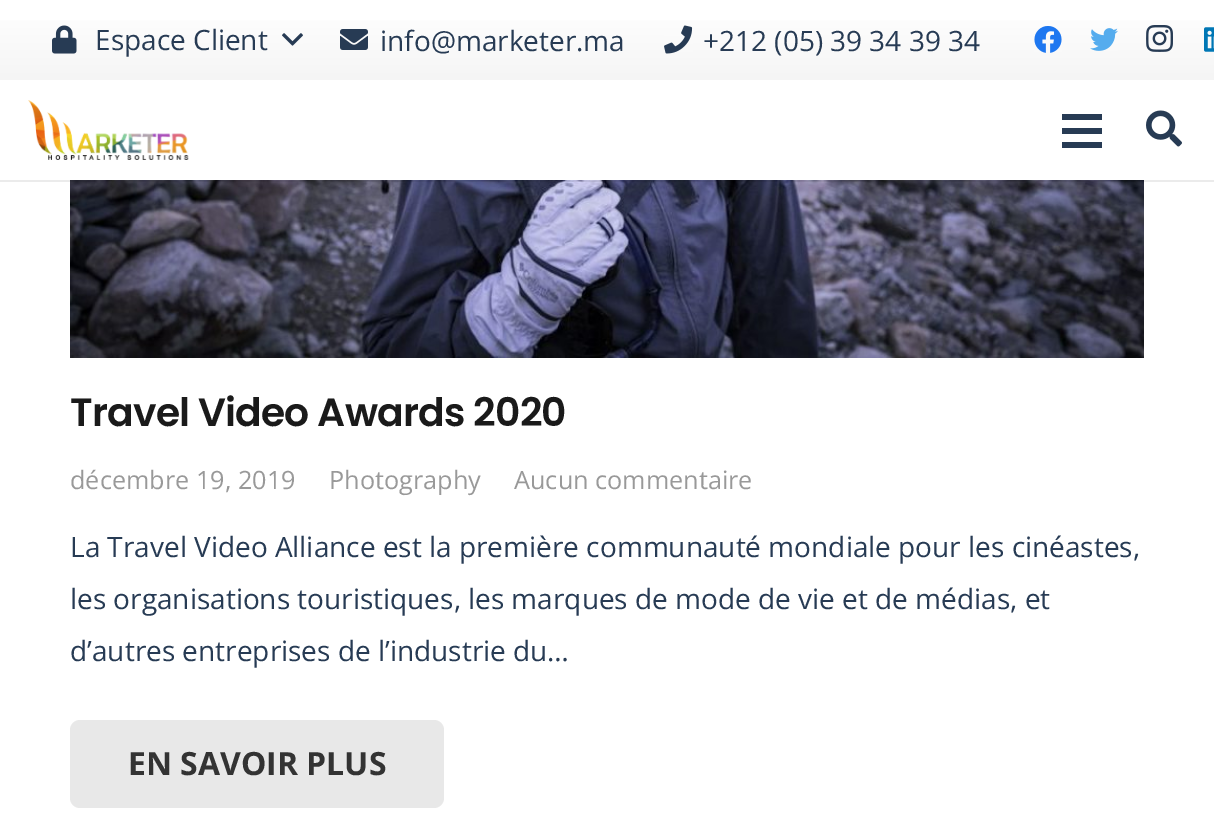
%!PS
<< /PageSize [1214 813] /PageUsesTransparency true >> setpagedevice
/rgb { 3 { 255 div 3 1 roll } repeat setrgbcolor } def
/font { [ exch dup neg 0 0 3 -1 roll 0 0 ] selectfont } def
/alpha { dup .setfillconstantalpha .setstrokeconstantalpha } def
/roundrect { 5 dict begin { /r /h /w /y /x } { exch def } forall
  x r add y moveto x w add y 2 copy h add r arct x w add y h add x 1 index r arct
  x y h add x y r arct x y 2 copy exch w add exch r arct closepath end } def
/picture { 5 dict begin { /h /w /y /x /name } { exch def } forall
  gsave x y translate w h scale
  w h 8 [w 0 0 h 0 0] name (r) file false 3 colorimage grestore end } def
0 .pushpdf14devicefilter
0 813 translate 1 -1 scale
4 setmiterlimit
255 255 255 rgb
0 0 1214 813 rectfill
gsave 0 20 moveto 1214 20 lineto 1214 80 lineto 0 80 lineto closepath clip newpath
<< /ShadingType 2 /ColorSpace /DeviceRGB /Coords [607 80 607 0] /Extend [true true] /Function << /FunctionType 2 /Domain [0 1] /C0 [0.961 0.961 0.961] /C1 [1 1 1] /N 1 >> >> shfill grestore
(img/1.rgb) 52 25 25 29 picture
(img/2.rgb) 282 33 21 13 picture
(img/3.rgb) 340 29 28 21 picture
(img/4.rgb) 664 25 29 29 picture
(img/5.rgb) 1034 26 28 27 picture
(img/6.rgb) 1090 28 28 23 picture
(img/7.rgb) 1146 25 27 27 picture
(img/8.rgb) 1204 27 10 25 picture
(img/11.rgb) 70 180 1074 178 picture
0.08 alpha
0 0 0 rgb
0 180 1214 2 rectfill
1 alpha
(img/9.rgb) 28 100 161 60 picture
[
  [1062 128 40 6 39 59 84]
  [1062 114 40 6 39 59 84]
  [1062 142 40 6 39 59 84]
] { aload pop rgb rectfill } forall
(img/10.rgb) 1146 110 36 37 picture
232 232 232 rgb
70 720 374 88 10 roundrect fill
/OpenSans-Regular 28 font
39 59 84 rgb
[
  [(Espace Client) 95 50]
  [(info@marketer.ma) 380 51]
  [(+212 \(05\) 39 34 39 34) 703 51]
] { aload pop moveto show } forall
/Poppins-SemiBold 39.25 font
26 26 26 rgb
70 426 moveto -0.75 0 (Travel Video Awards 2020) ashow
/OpenSans-Regular 25.25 font
153 153 153 rgb
[
  [(décembre 19, 2019) 70 489]
  [(Photography) 329 489]
  [(Aucun commentaire) 514 489]
] { aload pop moveto show } forall
/OpenSans-Regular 28 font
39 59 84 rgb
[
  [(La Travel Video Alliance est la première communauté mondiale pour les cinéastes,) 70 557]
  [(les organisations touristiques, les marques de mode de vie et de médias, et) 70 609]
  [(d’autres entreprises de l’industrie du…) 70 661]
] { aload pop moveto show } forall
/OpenSans-Bold 32 font
51 51 51 rgb
128 775 moveto (EN SAVOIR PLUS) show
.poppdf14devicefilter showpage
